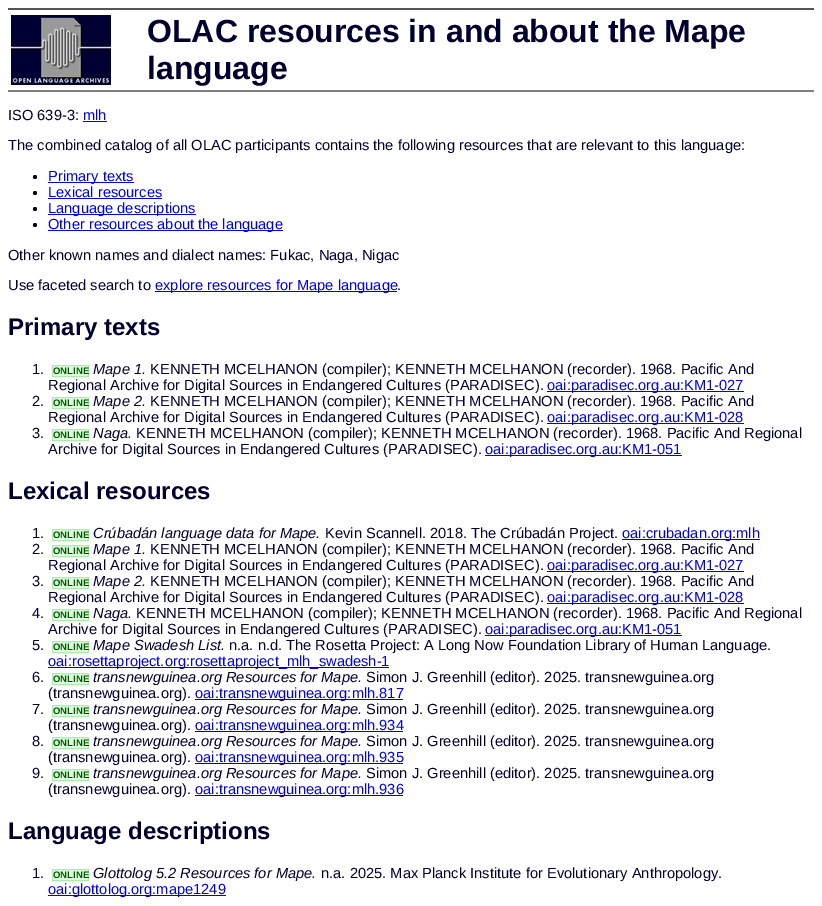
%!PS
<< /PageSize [822 906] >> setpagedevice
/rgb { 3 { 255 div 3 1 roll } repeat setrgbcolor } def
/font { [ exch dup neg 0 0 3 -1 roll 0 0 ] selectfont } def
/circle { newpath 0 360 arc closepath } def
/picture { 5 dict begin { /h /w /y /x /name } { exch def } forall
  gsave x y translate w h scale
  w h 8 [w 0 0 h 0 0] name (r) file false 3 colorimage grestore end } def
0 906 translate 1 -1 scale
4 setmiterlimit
255 255 255 rgb
0 0 822 906 rectfill
85 85 85 rgb
8 8 806 2 rectfill
128 128 128 rgb
8 90 806 2 rectfill
(img/1.rgb) 11 15 100 70 picture
0 0 238 rgb
83 121 24 1 rectfill
0 0 48 rgb
35 177 2 circle fill
0 0 238 rgb
48 182 86 1 rectfill
0 0 48 rgb
35 193 2 circle fill
0 0 238 rgb
48 198 114 1 rectfill
0 0 48 rgb
35 209 2 circle fill
0 0 238 rgb
48 214 148 1 rectfill
0 0 48 rgb
35 225 2 circle fill
0 0 238 rgb
48 230 235 1 rectfill
155 291 242 1 rectfill
221 255 221 rgb
52.5 365.5 moveto 88.5 365.5 lineto 88.5 376.5 lineto 52.5 376.5 lineto closepath gsave fill grestore
170 238 170 rgb
stroke
0 0 238 rgb
547 391 197 1 rectfill
221 255 221 rgb
52.5 397.5 moveto 88.5 397.5 lineto 88.5 408.5 lineto 52.5 408.5 lineto closepath gsave fill grestore
170 238 170 rgb
stroke
0 0 238 rgb
547 423 197 1 rectfill
221 255 221 rgb
52.5 429.5 moveto 88.5 429.5 lineto 88.5 440.5 lineto 52.5 440.5 lineto closepath gsave fill grestore
170 238 170 rgb
stroke
0 0 238 rgb
485 455 197 1 rectfill
221 255 221 rgb
52.5 529.5 moveto 88.5 529.5 lineto 88.5 540.5 lineto 52.5 540.5 lineto closepath gsave fill grestore
170 238 170 rgb
stroke
0 0 238 rgb
622 539 138 1 rectfill
221 255 221 rgb
52.5 545.5 moveto 88.5 545.5 lineto 88.5 556.5 lineto 52.5 556.5 lineto closepath gsave fill grestore
170 238 170 rgb
stroke
0 0 238 rgb
547 571 197 1 rectfill
221 255 221 rgb
52.5 577.5 moveto 88.5 577.5 lineto 88.5 588.5 lineto 52.5 588.5 lineto closepath gsave fill grestore
170 238 170 rgb
stroke
0 0 238 rgb
547 603 197 1 rectfill
221 255 221 rgb
52.5 609.5 moveto 88.5 609.5 lineto 88.5 620.5 lineto 52.5 620.5 lineto closepath gsave fill grestore
170 238 170 rgb
stroke
0 0 238 rgb
485 635 197 1 rectfill
221 255 221 rgb
52.5 641.5 moveto 88.5 641.5 lineto 88.5 652.5 lineto 52.5 652.5 lineto closepath gsave fill grestore
170 238 170 rgb
stroke
0 0 238 rgb
48 667 341 1 rectfill
221 255 221 rgb
52.5 673.5 moveto 88.5 673.5 lineto 88.5 684.5 lineto 52.5 684.5 lineto closepath gsave fill grestore
170 238 170 rgb
stroke
0 0 238 rgb
195 699 208 1 rectfill
221 255 221 rgb
52.5 705.5 moveto 88.5 705.5 lineto 88.5 716.5 lineto 52.5 716.5 lineto closepath gsave fill grestore
170 238 170 rgb
stroke
0 0 238 rgb
195 731 208 1 rectfill
221 255 221 rgb
52.5 737.5 moveto 88.5 737.5 lineto 88.5 748.5 lineto 52.5 748.5 lineto closepath gsave fill grestore
170 238 170 rgb
stroke
0 0 238 rgb
195 763 208 1 rectfill
221 255 221 rgb
52.5 769.5 moveto 88.5 769.5 lineto 88.5 780.5 lineto 52.5 780.5 lineto closepath gsave fill grestore
170 238 170 rgb
stroke
0 0 238 rgb
195 795 208 1 rectfill
221 255 221 rgb
52.5 869.5 moveto 88.5 869.5 lineto 88.5 880.5 lineto 52.5 880.5 lineto closepath gsave fill grestore
170 238 170 rgb
stroke
0 0 238 rgb
48 895 178 1 rectfill
/LiberationSans-Bold 32 font
0 0 48 rgb
147 42 moveto (OLAC resources in and about the Mape) show
147 79 moveto (language) show
/LiberationSans-Regular 14.67 font
8 120 moveto (ISO 639-3:) show
0 0 238 rgb
83 120 moveto (mlh) show
0 0 48 rgb
8 150 moveto (The combined catalog of all OLAC participants contains the following resources that are relevant to this language:) show
0 0 238 rgb
[
  [(Primary texts) 48 181]
  [(Lexical resources) 48 197]
  [(Language descriptions) 48 213]
  [(Other resources about the language) 48 229]
] { aload pop moveto show } forall
0 0 48 rgb
8 260 moveto (Other known names and dialect names: Fukac, Naga, Nigac) show
8 290 moveto (Use faceted search to) show
0 0 238 rgb
155 290 moveto (explore resources for Mape language) show
0 0 48 rgb
397 290 moveto (.) show
/LiberationSans-Bold 24 font
8 335 moveto (Primary texts) show
/LiberationSans-Regular 14.67 font
32 374 moveto (1.) show
/LiberationSans-Bold 9.5 font
0 85 0 rgb
53 374 moveto (ONLINE) show
/LiberationSans-Italic 14.67 font
0 0 48 rgb
93 374 moveto (Mape 1.) show
/LiberationSans-Regular 14.67 font
150 374 moveto (KENNETH MCELHANON \(compiler\); KENNETH MCELHANON \(recorder\). 1968. Pacific And) show
48 390 moveto (Regional Archive for Digital Sources in Endangered Cultures \(PARADISEC\).) show
0 0 238 rgb
547 390 moveto (oai:paradisec.org.au:KM1-027) show
0 0 48 rgb
32 406 moveto (2.) show
/LiberationSans-Bold 9.5 font
0 85 0 rgb
53 406 moveto (ONLINE) show
/LiberationSans-Italic 14.67 font
0 0 48 rgb
93 406 moveto (Mape 2.) show
/LiberationSans-Regular 14.67 font
150 406 moveto (KENNETH MCELHANON \(compiler\); KENNETH MCELHANON \(recorder\). 1968. Pacific And) show
48 422 moveto (Regional Archive for Digital Sources in Endangered Cultures \(PARADISEC\).) show
0 0 238 rgb
547 422 moveto (oai:paradisec.org.au:KM1-028) show
0 0 48 rgb
32 438 moveto (3.) show
/LiberationSans-Bold 9.5 font
0 85 0 rgb
53 438 moveto (ONLINE) show
/LiberationSans-Italic 14.67 font
0 0 48 rgb
93 438 moveto (Naga.) show
/LiberationSans-Regular 14.67 font
136 438 moveto (KENNETH MCELHANON \(compiler\); KENNETH MCELHANON \(recorder\). 1968. Pacific And Regional) show
48 454 moveto (Archive for Digital Sources in Endangered Cultures \(PARADISEC\).) show
0 0 238 rgb
485 454 moveto (oai:paradisec.org.au:KM1-051) show
/LiberationSans-Bold 24 font
0 0 48 rgb
8 499 moveto (Lexical resources) show
/LiberationSans-Regular 14.67 font
32 538 moveto (1.) show
/LiberationSans-Bold 9.5 font
0 85 0 rgb
53 538 moveto (ONLINE) show
/LiberationSans-Italic 14.67 font
0 0 48 rgb
93 538 moveto (Crúbadán language data for Mape.) show
/LiberationSans-Regular 14.67 font
325 538 moveto (Kevin Scannell. 2018. The Crúbadán Project.) show
0 0 238 rgb
622 538 moveto (oai:crubadan.org:mlh) show
0 0 48 rgb
32 554 moveto (2.) show
/LiberationSans-Bold 9.5 font
0 85 0 rgb
53 554 moveto (ONLINE) show
/LiberationSans-Italic 14.67 font
0 0 48 rgb
93 554 moveto (Mape 1.) show
/LiberationSans-Regular 14.67 font
150 554 moveto (KENNETH MCELHANON \(compiler\); KENNETH MCELHANON \(recorder\). 1968. Pacific And) show
48 570 moveto (Regional Archive for Digital Sources in Endangered Cultures \(PARADISEC\).) show
0 0 238 rgb
547 570 moveto (oai:paradisec.org.au:KM1-027) show
0 0 48 rgb
32 586 moveto (3.) show
/LiberationSans-Bold 9.5 font
0 85 0 rgb
53 586 moveto (ONLINE) show
/LiberationSans-Italic 14.67 font
0 0 48 rgb
93 586 moveto (Mape 2.) show
/LiberationSans-Regular 14.67 font
150 586 moveto (KENNETH MCELHANON \(compiler\); KENNETH MCELHANON \(recorder\). 1968. Pacific And) show
48 602 moveto (Regional Archive for Digital Sources in Endangered Cultures \(PARADISEC\).) show
0 0 238 rgb
547 602 moveto (oai:paradisec.org.au:KM1-028) show
0 0 48 rgb
32 618 moveto (4.) show
/LiberationSans-Bold 9.5 font
0 85 0 rgb
53 618 moveto (ONLINE) show
/LiberationSans-Italic 14.67 font
0 0 48 rgb
93 618 moveto (Naga.) show
/LiberationSans-Regular 14.67 font
136 618 moveto (KENNETH MCELHANON \(compiler\); KENNETH MCELHANON \(recorder\). 1968. Pacific And Regional) show
48 634 moveto (Archive for Digital Sources in Endangered Cultures \(PARADISEC\).) show
0 0 238 rgb
485 634 moveto (oai:paradisec.org.au:KM1-051) show
0 0 48 rgb
32 650 moveto (5.) show
/LiberationSans-Bold 9.5 font
0 85 0 rgb
53 650 moveto (ONLINE) show
/LiberationSans-Italic 14.67 font
0 0 48 rgb
93 650 moveto (Mape Swadesh List.) show
/LiberationSans-Regular 14.67 font
229 650 moveto (n.a. n.d. The Rosetta Project: A Long Now Foundation Library of Human Language.) show
0 0 238 rgb
48 666 moveto (oai:rosettaproject.org:rosettaproject_mlh_swadesh-1) show
0 0 48 rgb
32 682 moveto (6.) show
/LiberationSans-Bold 9.5 font
0 85 0 rgb
53 682 moveto (ONLINE) show
/LiberationSans-Italic 14.67 font
0 0 48 rgb
93 682 moveto (transnewguinea.org Resources for Mape.) show
/LiberationSans-Regular 14.67 font
366 682 moveto (Simon J. Greenhill \(editor\). 2025. transnewguinea.org) show
48 698 moveto (\(transnewguinea.org\).) show
0 0 238 rgb
195 698 moveto (oai:transnewguinea.org:mlh.817) show
0 0 48 rgb
32 714 moveto (7.) show
/LiberationSans-Bold 9.5 font
0 85 0 rgb
53 714 moveto (ONLINE) show
/LiberationSans-Italic 14.67 font
0 0 48 rgb
93 714 moveto (transnewguinea.org Resources for Mape.) show
/LiberationSans-Regular 14.67 font
366 714 moveto (Simon J. Greenhill \(editor\). 2025. transnewguinea.org) show
48 730 moveto (\(transnewguinea.org\).) show
0 0 238 rgb
195 730 moveto (oai:transnewguinea.org:mlh.934) show
0 0 48 rgb
32 746 moveto (8.) show
/LiberationSans-Bold 9.5 font
0 85 0 rgb
53 746 moveto (ONLINE) show
/LiberationSans-Italic 14.67 font
0 0 48 rgb
93 746 moveto (transnewguinea.org Resources for Mape.) show
/LiberationSans-Regular 14.67 font
366 746 moveto (Simon J. Greenhill \(editor\). 2025. transnewguinea.org) show
48 762 moveto (\(transnewguinea.org\).) show
0 0 238 rgb
195 762 moveto (oai:transnewguinea.org:mlh.935) show
0 0 48 rgb
32 778 moveto (9.) show
/LiberationSans-Bold 9.5 font
0 85 0 rgb
53 778 moveto (ONLINE) show
/LiberationSans-Italic 14.67 font
0 0 48 rgb
93 778 moveto (transnewguinea.org Resources for Mape.) show
/LiberationSans-Regular 14.67 font
366 778 moveto (Simon J. Greenhill \(editor\). 2025. transnewguinea.org) show
48 794 moveto (\(transnewguinea.org\).) show
0 0 238 rgb
195 794 moveto (oai:transnewguinea.org:mlh.936) show
/LiberationSans-Bold 24 font
0 0 48 rgb
8 839 moveto (Language descriptions) show
/LiberationSans-Regular 14.67 font
32 878 moveto (1.) show
/LiberationSans-Bold 9.5 font
0 85 0 rgb
53 878 moveto (ONLINE) show
/LiberationSans-Italic 14.67 font
0 0 48 rgb
93 878 moveto (Glottolog 5.2 Resources for Mape.) show
/LiberationSans-Regular 14.67 font
321 878 moveto (n.a. 2025. Max Planck Institute for Evolutionary Anthropology.) show
0 0 238 rgb
48 894 moveto (oai:glottolog.org:mape1249) show
showpage
